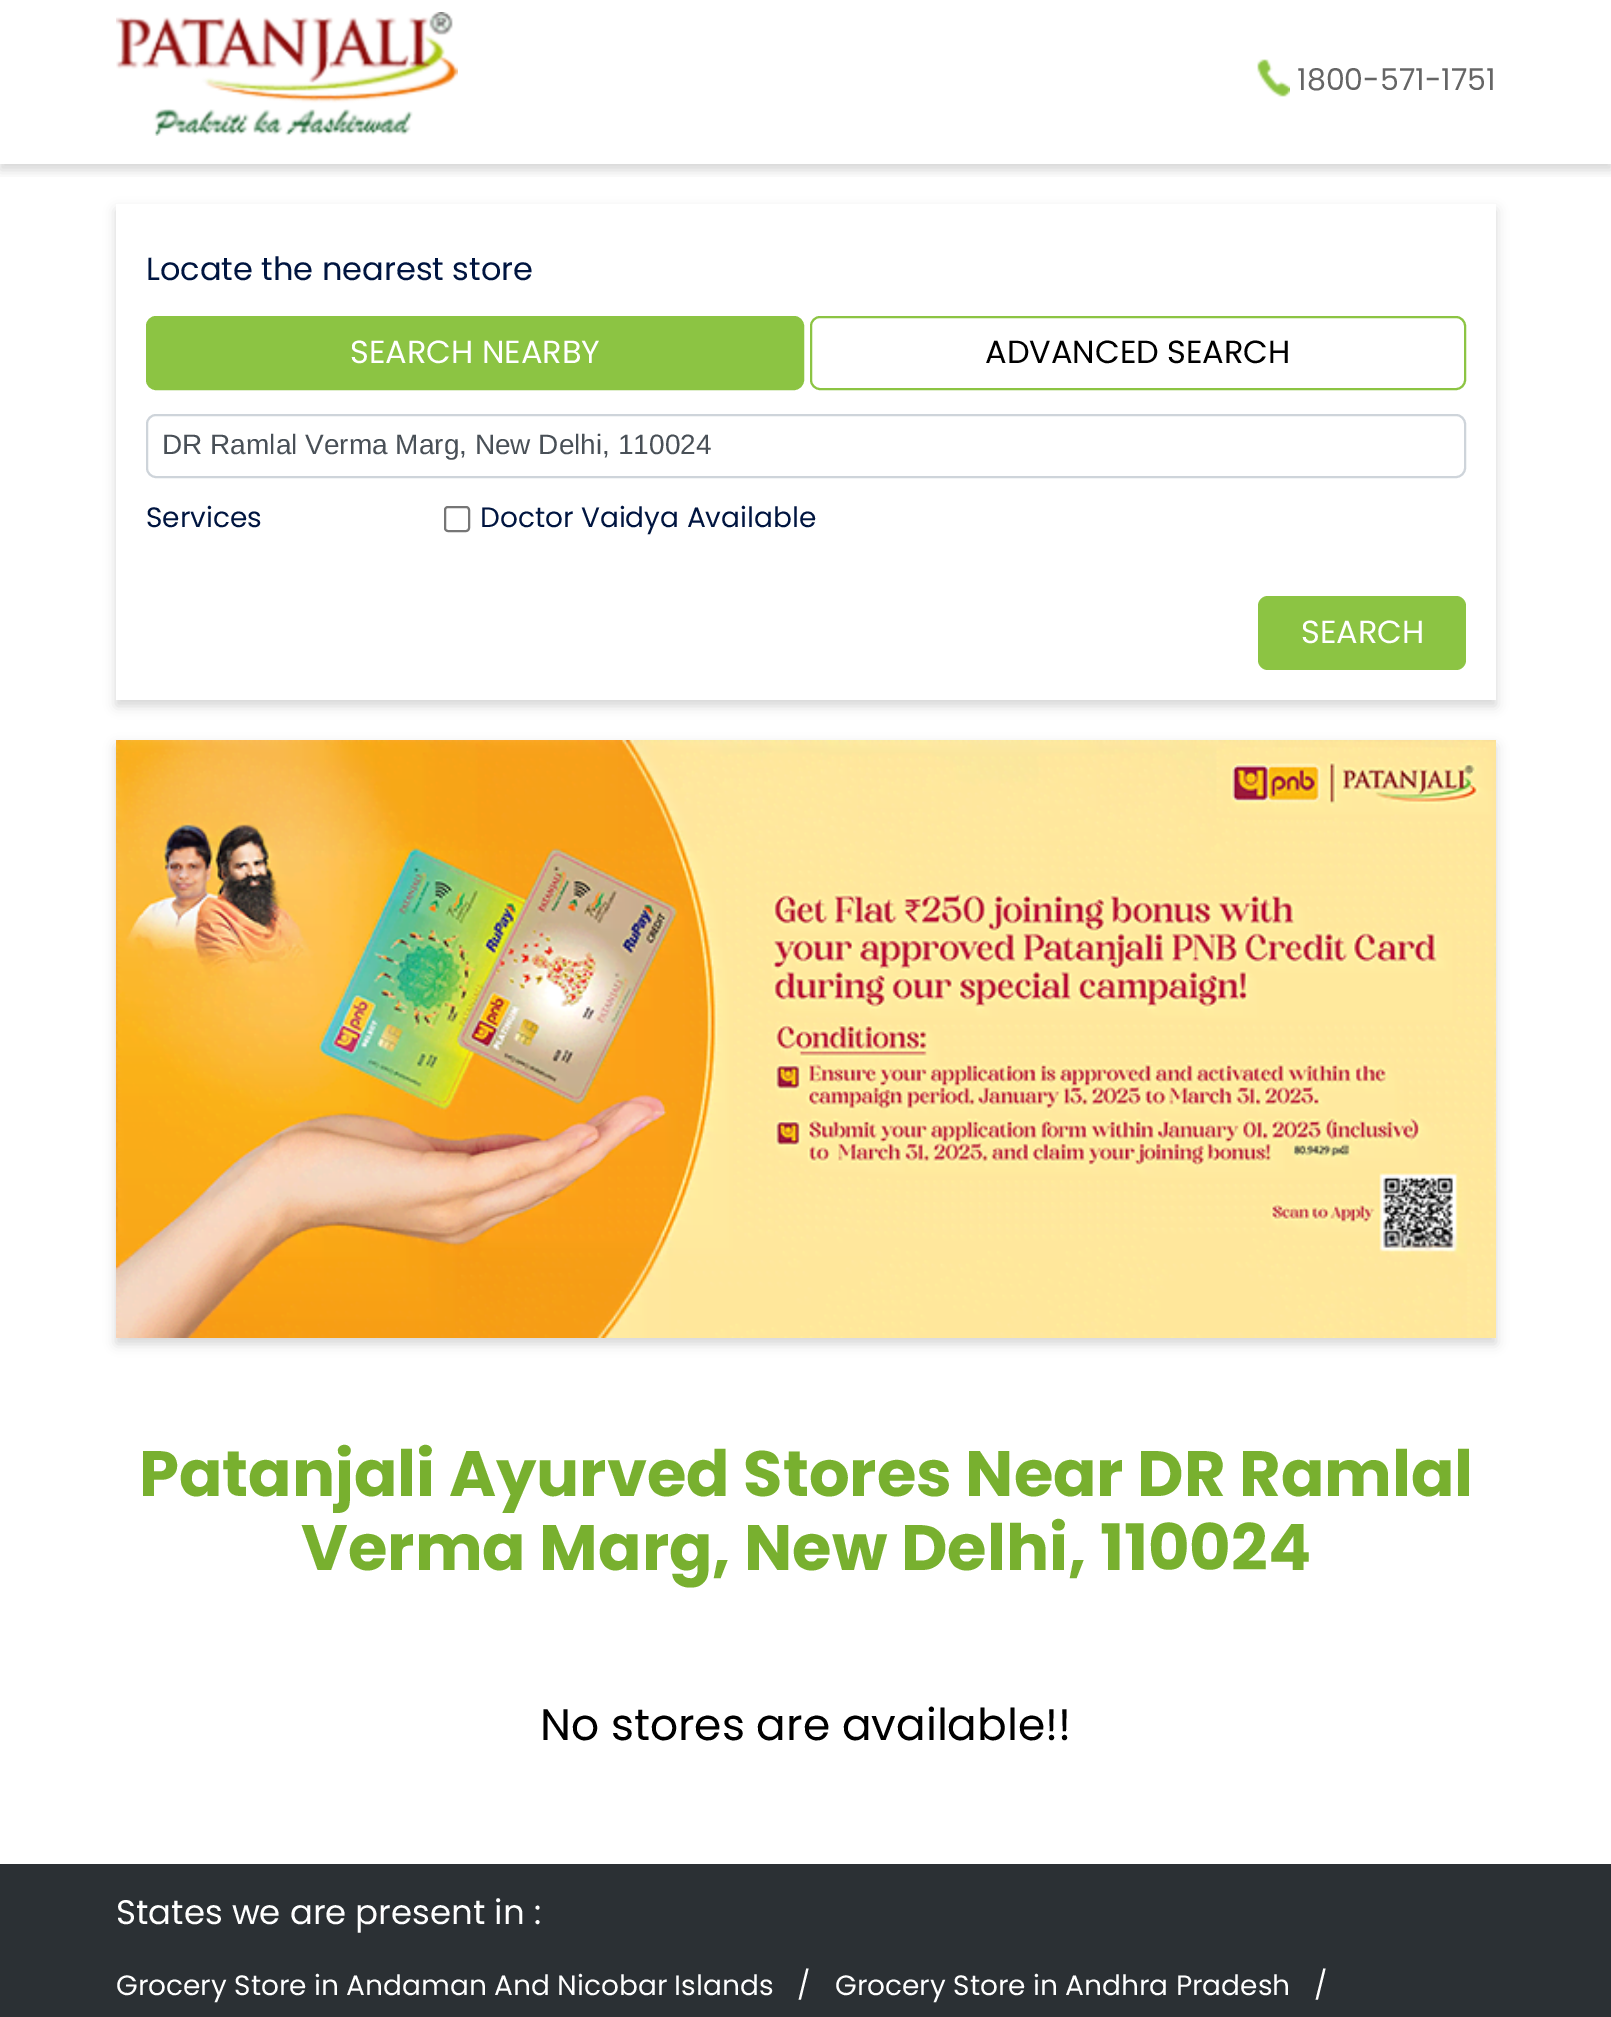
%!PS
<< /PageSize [1611 2017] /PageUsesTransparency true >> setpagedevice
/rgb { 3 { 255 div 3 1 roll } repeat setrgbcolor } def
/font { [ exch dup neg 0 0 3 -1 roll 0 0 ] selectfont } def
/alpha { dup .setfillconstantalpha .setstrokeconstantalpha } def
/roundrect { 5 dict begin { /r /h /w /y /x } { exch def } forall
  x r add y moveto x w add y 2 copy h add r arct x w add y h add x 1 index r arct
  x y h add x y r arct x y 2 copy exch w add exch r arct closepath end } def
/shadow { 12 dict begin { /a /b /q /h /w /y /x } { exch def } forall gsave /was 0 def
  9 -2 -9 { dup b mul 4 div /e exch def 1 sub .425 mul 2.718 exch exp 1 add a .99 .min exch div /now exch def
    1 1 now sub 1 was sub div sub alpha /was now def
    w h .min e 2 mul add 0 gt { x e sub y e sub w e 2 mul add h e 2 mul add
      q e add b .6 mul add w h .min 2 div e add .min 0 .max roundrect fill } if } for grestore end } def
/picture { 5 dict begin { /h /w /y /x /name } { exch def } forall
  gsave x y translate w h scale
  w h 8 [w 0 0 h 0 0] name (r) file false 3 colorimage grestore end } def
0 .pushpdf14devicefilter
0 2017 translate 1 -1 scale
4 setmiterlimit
255 255 255 rgb
0 0 1611 2017 rectfill
gsave
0 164 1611 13 rectclip
0 0 0 rgb
0 6 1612 164 0 6 0.16 shadow
grestore
(img/1.rgb) 116 12 342 124 picture
(img/2.rgb) 1257 59 33 38 picture
gsave
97 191 moveto 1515 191 lineto 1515 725 lineto 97 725 lineto closepath 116 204 moveto 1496 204 lineto 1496 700 lineto 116 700 lineto closepath eoclip newpath
0 0 0 rgb
116 210 1380 496 0 6 0.16 shadow
grestore
140 196 67 rgb
147 317 656 72 9 roundrect gsave fill grestore
2 setlinewidth
stroke
811 317 654 72 9 roundrect stroke
206 212 218 rgb
147 415 1318 62 9 roundrect stroke
118 118 118 rgb
445 507 24 24 3 roundrect stroke
140 196 67 rgb
1258 596 208 74 10 roundrect fill
0 0 0 rgb
116 746 1380 598 0 6 0.16 shadow
(img/3.rgb) 116 740 1380 598 picture
43 48 52 rgb
0 1864 1611 153 rectfill
/Poppins-Regular 30 font
101 101 101 rgb
1297 90 moveto (1800-571-1751) show
/Poppins-Regular 32 font
0 21 64 rgb
146 280 moveto (Locate the nearest store) show
255 255 255 rgb
350 363 moveto (SEARCH NEARBY) show
0 0 0 rgb
985 363 moveto (ADVANCED SEARCH) show
/LiberationSans-Regular 28 font
73 80 87 rgb
162 454 moveto (DR Ramlal Verma Marg, New Delhi, 110024) show
/Poppins-Regular 28 font
0 21 64 rgb
146 527 moveto (Services) show
480 527 moveto (Doctor Vaidya Available) show
/Poppins-Regular 32 font
255 255 255 rgb
1301 643 moveto (SEARCH) show
/Poppins-Bold 64 font
120 176 47 rgb
139 1496 moveto (Patanjali Ayurved Stores Near DR Ramlal) show
301 1570 moveto (Verma Marg, New Delhi, 110024) show
/Poppins-Regular 44 font
0 0 0 rgb
540 1740 moveto (No stores are available!!) show
/Poppins-Regular 34 font
255 255 255 rgb
116 1924 moveto (States we are present in) show
534 1924 moveto (:) show
/Poppins-Regular 28 font
[
  [(Grocery Store in Andaman And Nicobar Islands) 116 1995]
  [(/) 797 1995]
  [(Grocery Store in Andhra Pradesh) 835 1995]
  [(/) 1314 1995]
] { aload pop moveto show } forall
.poppdf14devicefilter showpage
